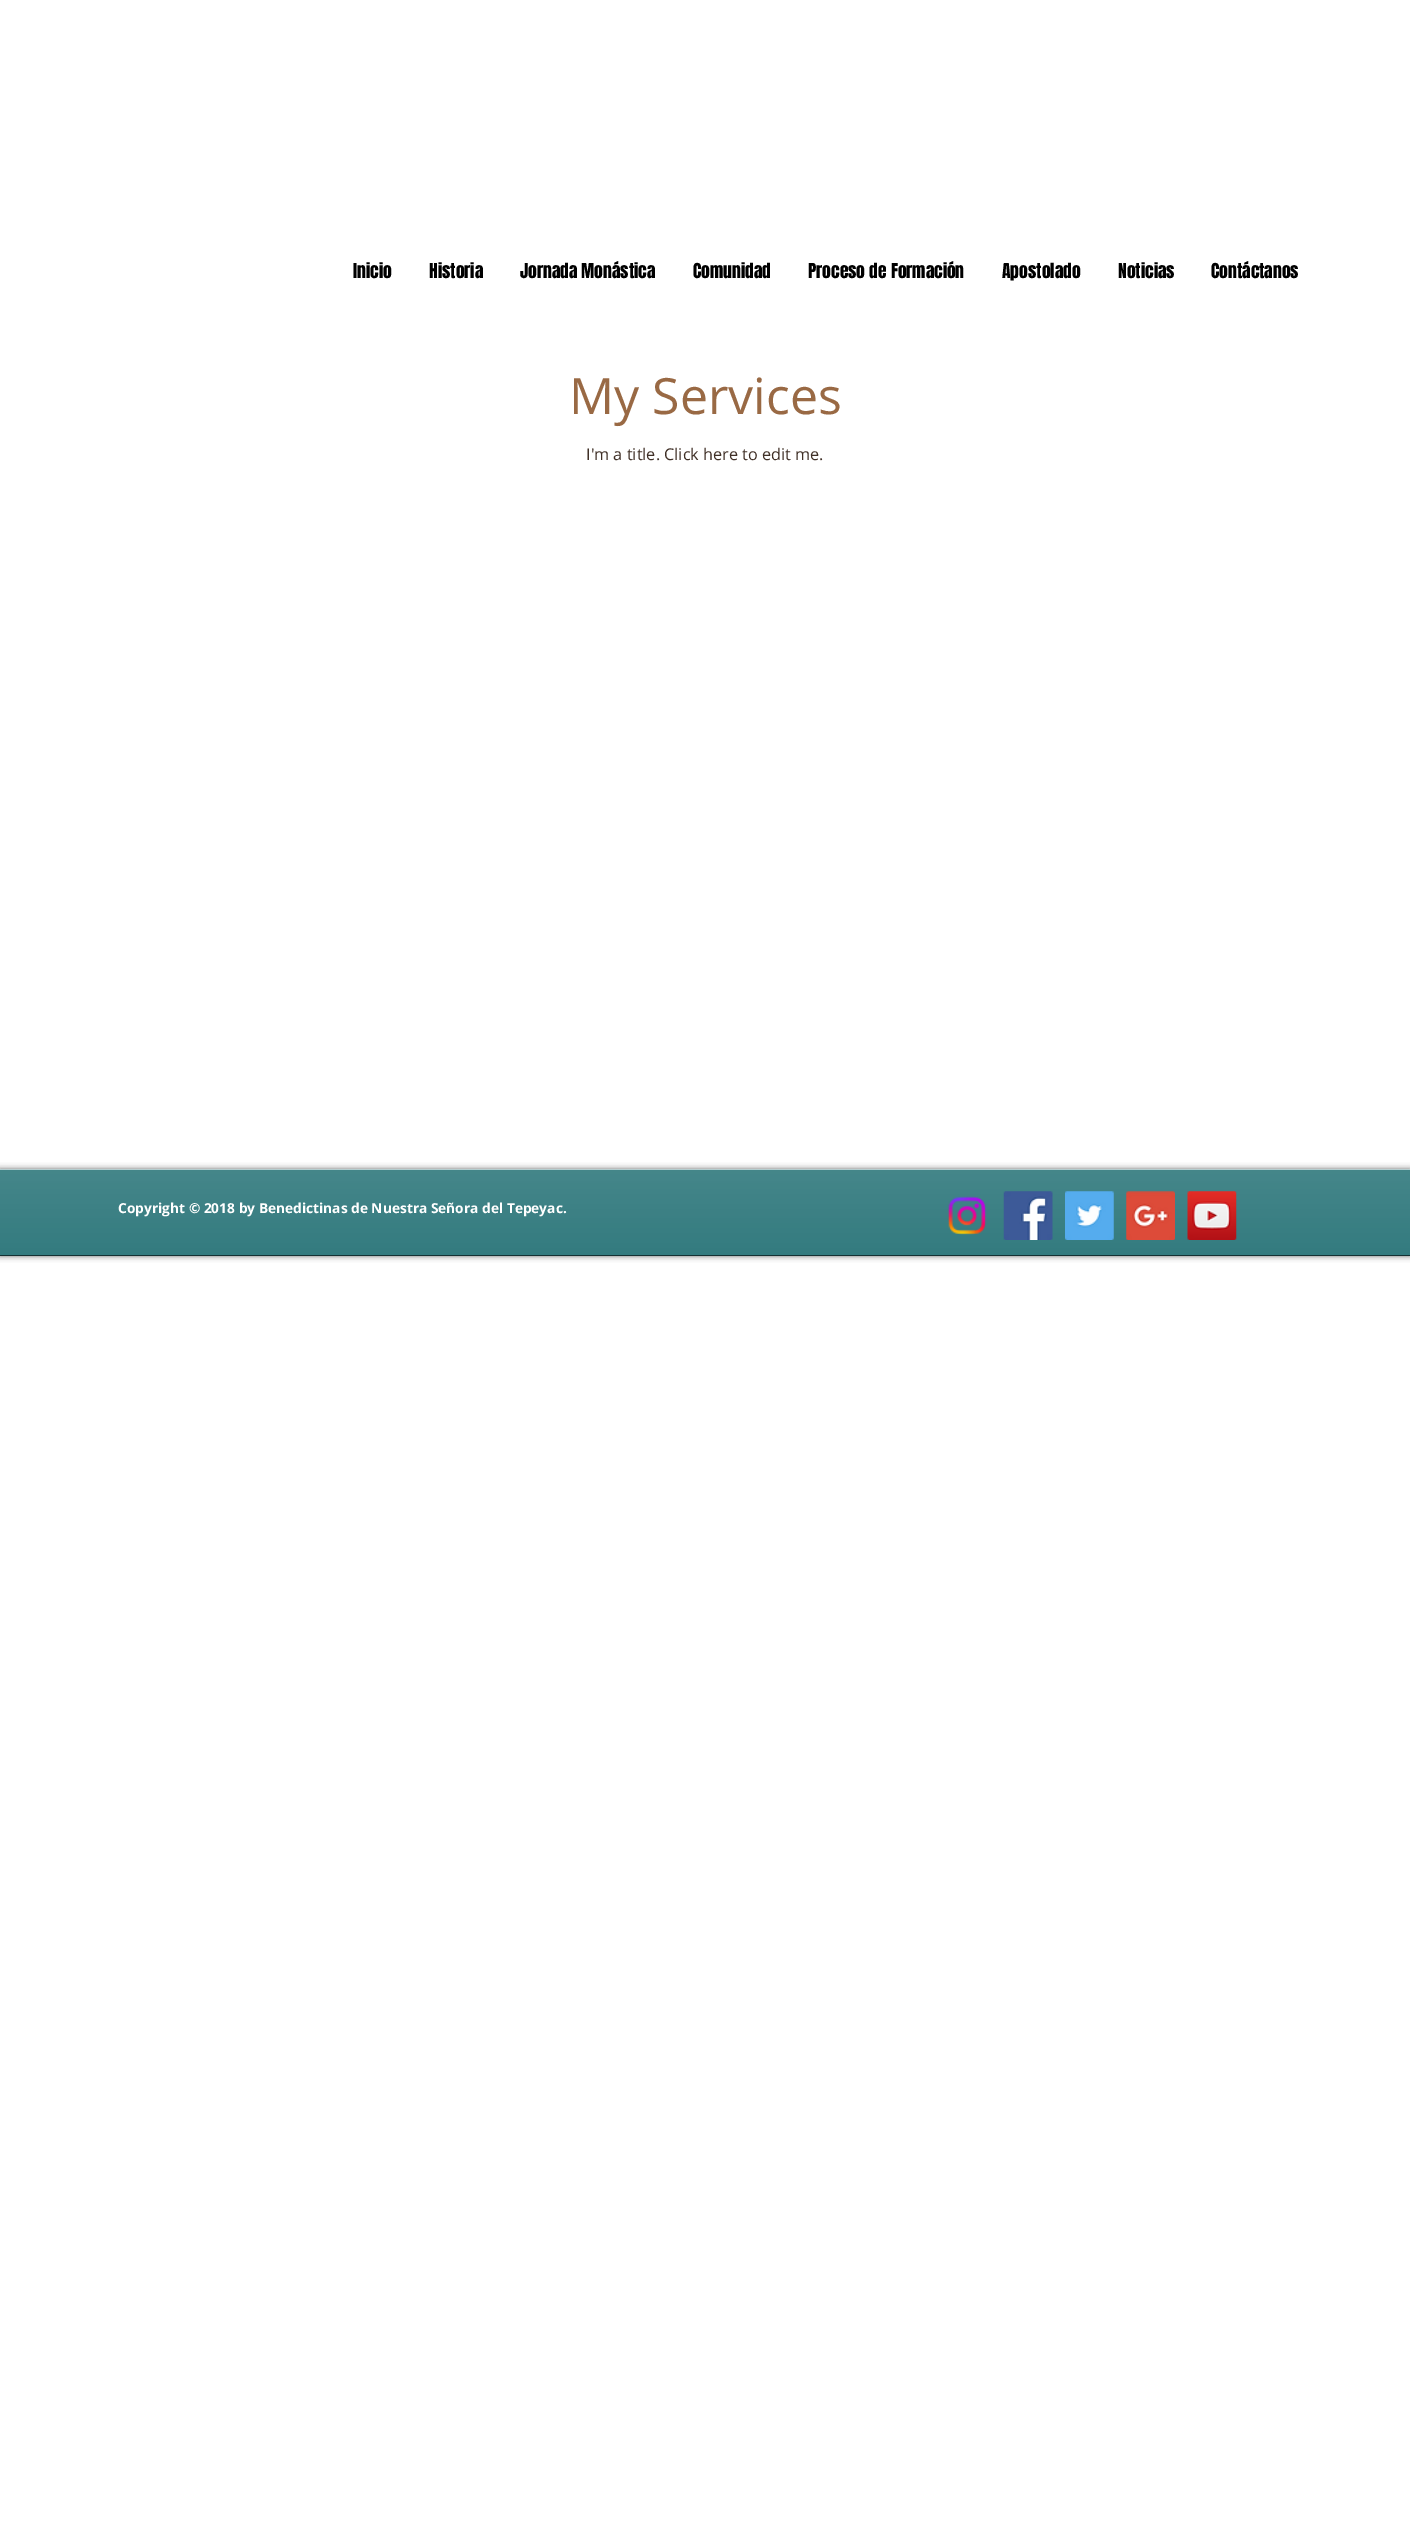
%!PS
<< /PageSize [1410 2523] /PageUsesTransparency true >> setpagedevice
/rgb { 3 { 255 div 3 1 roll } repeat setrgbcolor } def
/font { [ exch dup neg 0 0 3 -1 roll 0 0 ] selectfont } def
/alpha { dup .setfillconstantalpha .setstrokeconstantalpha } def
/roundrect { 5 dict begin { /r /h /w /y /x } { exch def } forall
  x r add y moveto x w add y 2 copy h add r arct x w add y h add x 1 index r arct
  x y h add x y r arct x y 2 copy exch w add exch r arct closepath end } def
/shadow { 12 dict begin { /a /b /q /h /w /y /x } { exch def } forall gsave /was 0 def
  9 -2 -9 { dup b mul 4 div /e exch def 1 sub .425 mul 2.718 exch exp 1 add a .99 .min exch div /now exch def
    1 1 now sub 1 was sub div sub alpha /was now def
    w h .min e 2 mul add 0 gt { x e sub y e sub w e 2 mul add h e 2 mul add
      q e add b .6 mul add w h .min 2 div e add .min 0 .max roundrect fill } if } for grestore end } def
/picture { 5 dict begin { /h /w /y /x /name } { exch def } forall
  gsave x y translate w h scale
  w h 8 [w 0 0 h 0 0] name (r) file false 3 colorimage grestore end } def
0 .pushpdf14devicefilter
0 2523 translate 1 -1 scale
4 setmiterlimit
255 255 255 rgb
0 0 1410 2523 rectfill
0 0 0 rgb
0 1169 1410 87 0 3 0.6 shadow
4 92 97 rgb
0 1170 1410 85 rectfill
(img/1.rgb) 0 1170 1410 85 picture
20 49 51 rgb
0 1255 1410 1 rectfill
180 206 208 rgb
0 1169 1410 1 rectfill
(img/2.rgb) 947 1196 40 39 picture
(img/3.rgb) 1003 1191 50 49 picture
(img/4.rgb) 1065 1191 49 49 picture
(img/5.rgb) 1126 1191 49 49 picture
(img/6.rgb) 1187 1191 50 49 picture
/Anton-Regular 17.5 font
0 0 0 rgb
[
  [(Inicio) 353 278]
  [(Historia) 429 278]
  [(Jornada Monástica) 520 278]
  [(Comunidad) 693 278]
  [(Proceso de Formación) 808 278]
  [(Apostolado) 1002 278]
  [(Noticias) 1118 278]
  [(Contáctanos) 1211 278]
] { aload pop moveto show } forall
/OpenSans-Regular 50 font
153 105 68 rgb
569 414 moveto (My Services) show
/OpenSans-Regular 16.25 font
64 48 39 rgb
586 460 moveto (I'm a title. Click here to edit me.) show
/OpenSans-Bold 13.75 font
255 255 255 rgb
118 1213 moveto (Copyright © 2018 by Benedictinas de Nuestra Señora del Tepeyac.) show
.poppdf14devicefilter showpage
